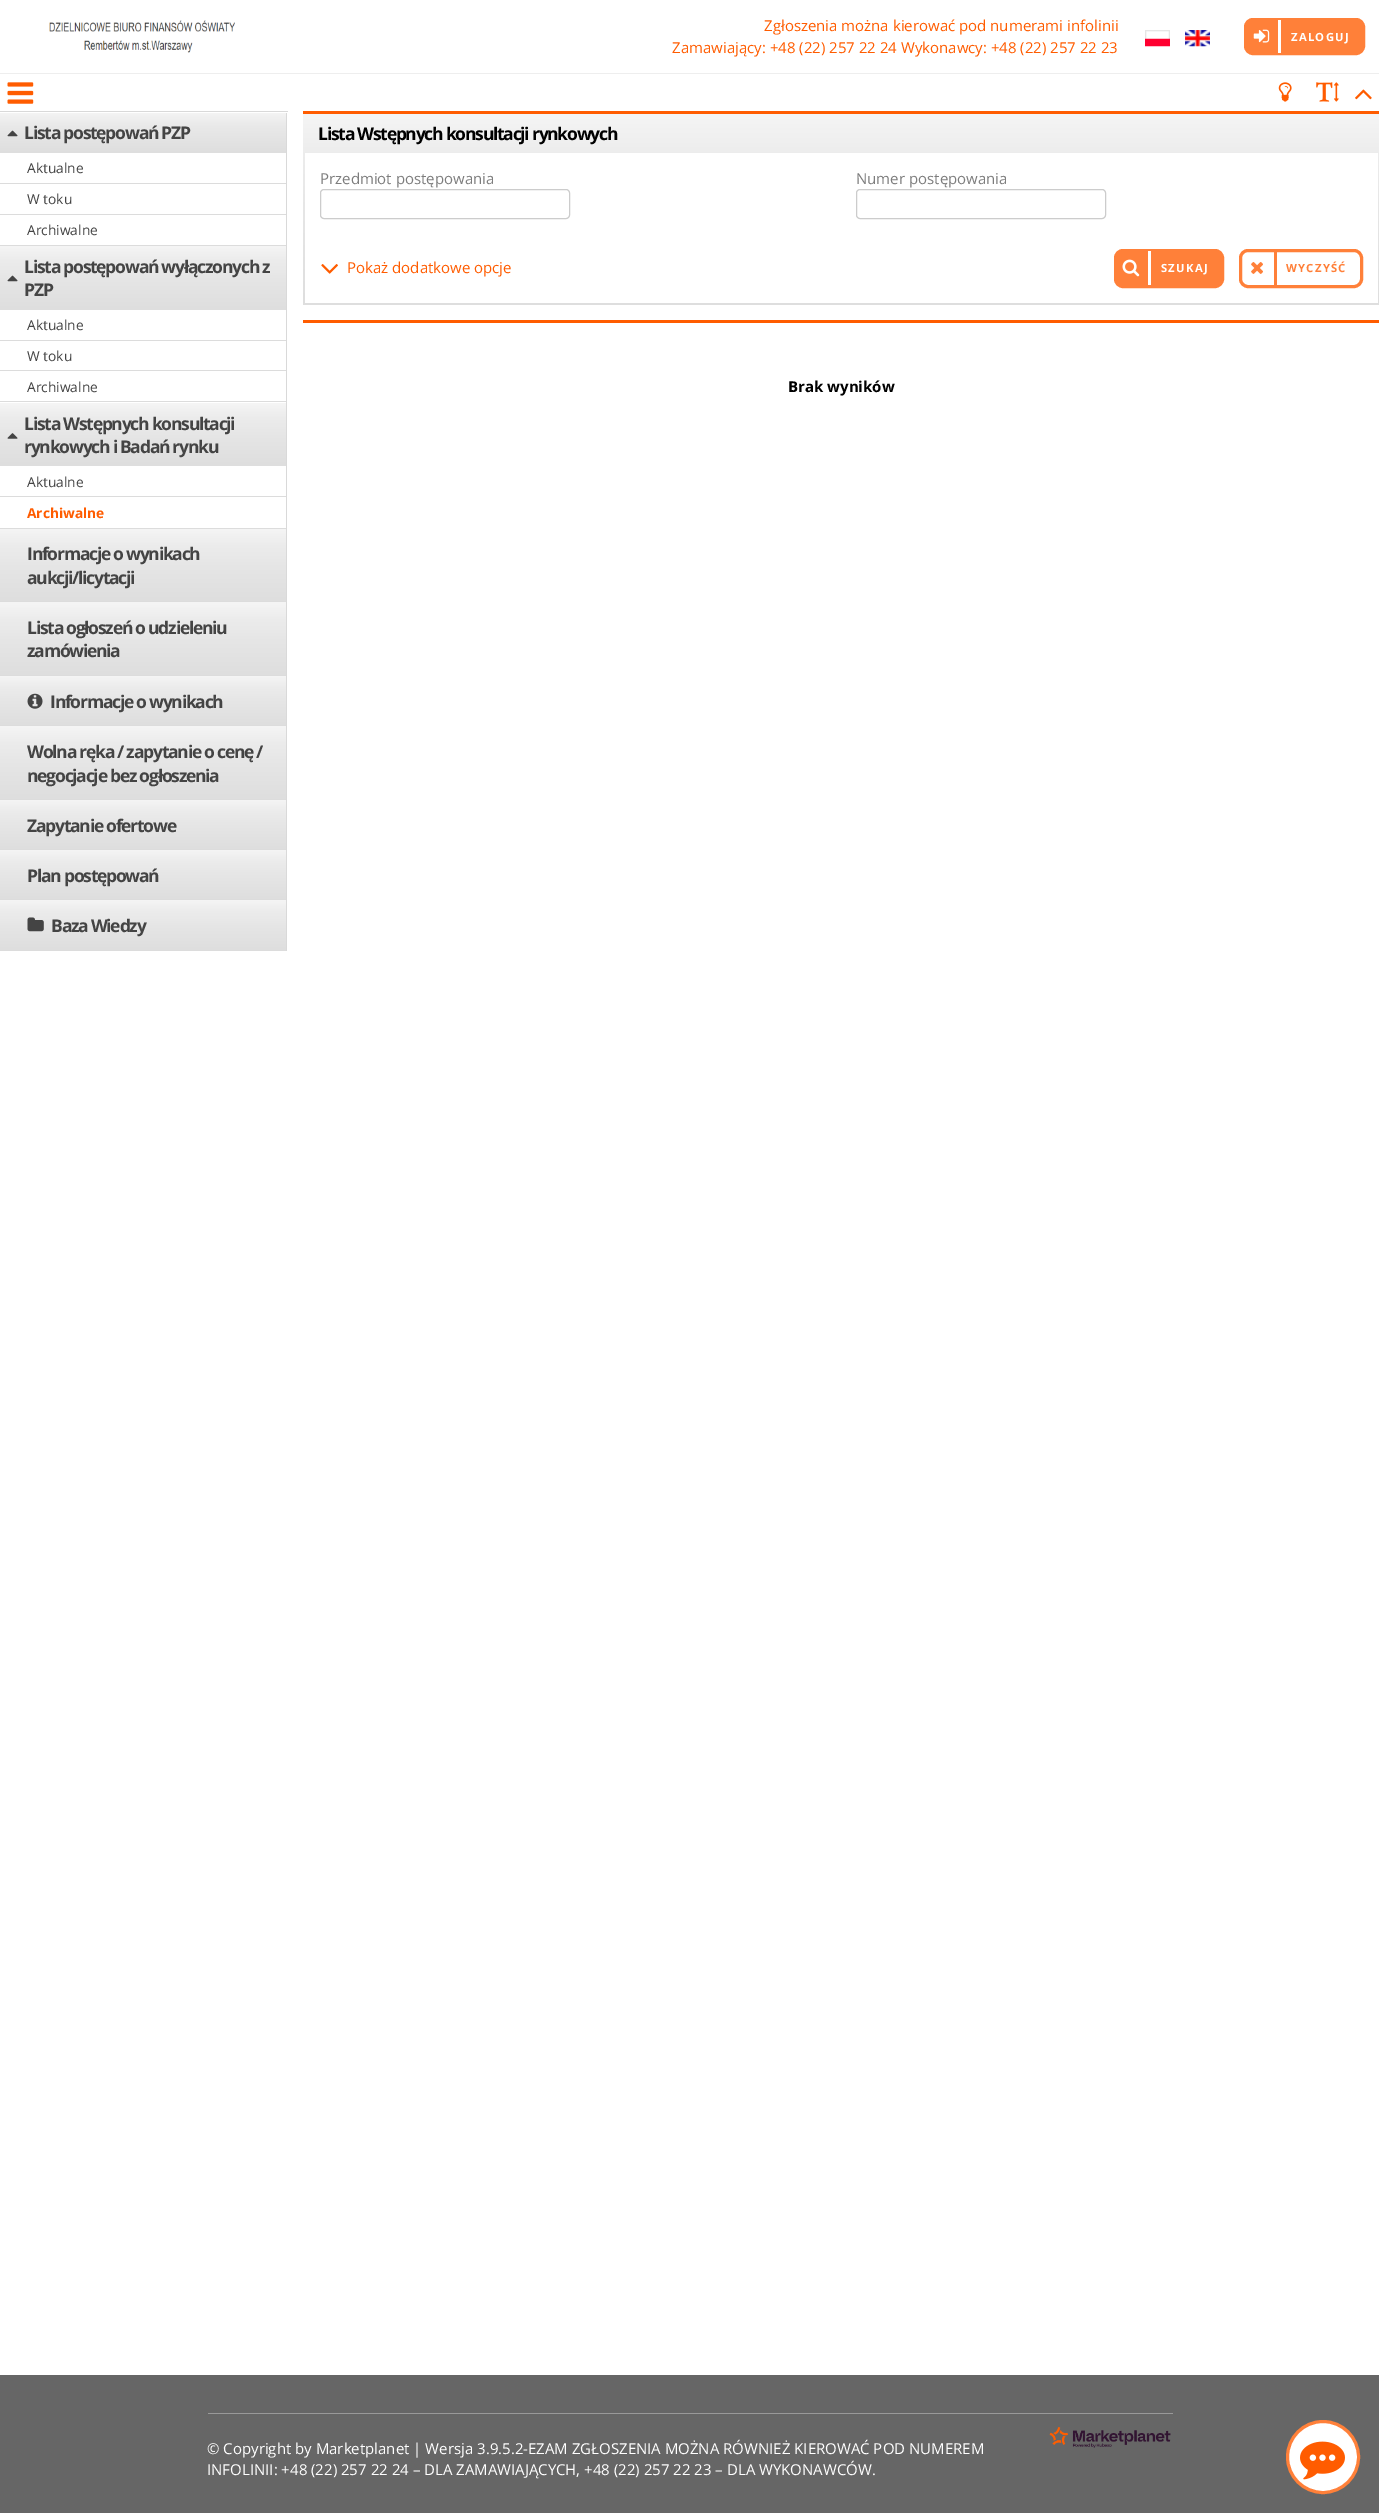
%!PS
<< /PageSize [1379 2513] >> setpagedevice
/rgb { 3 { 255 div 3 1 roll } repeat setrgbcolor } def
/font { [ exch dup neg 0 0 3 -1 roll 0 0 ] selectfont } def
/circle { newpath 0 360 arc closepath } def
/roundrect { 5 dict begin { /r /h /w /y /x } { exch def } forall
  x r add y moveto x w add y 2 copy h add r arct x w add y h add x 1 index r arct
  x y h add x y r arct x y 2 copy exch w add exch r arct closepath end } def
/picture { 5 dict begin { /h /w /y /x /name } { exch def } forall
  gsave x y translate w h scale
  w h 8 [w 0 0 h 0 0] name (r) file false 3 colorimage grestore end } def
0 2513 translate 1 -1 scale
4 setmiterlimit
255 255 255 rgb
0 0 1379 2513 rectfill
(img/1.rgb) 49 20 186 33 picture
(img/2.rgb) 1145 30 25 17 picture
(img/3.rgb) 1185 30 25 17 picture
255 128 57 rgb
1245.5 19.5 118 34 7.5 roundrect gsave fill grestore
3 setlinewidth
stroke
255 255 255 rgb
1278 20 3 33 rectfill
(img/4.rgb) 1253 29 17 14 picture
238 238 238 rgb
0 73 1379 1 rectfill
(img/5.rgb) 7 82 27 22 picture
(img/6.rgb) 1278 82 14 20 picture
(img/7.rgb) 1316 82 23 20 picture
(img/8.rgb) 1355 89 17 11 picture
217 217 217 rgb
0 111 288 1 rectfill
286 113 1 838 rectfill
gsave 0 113 moveto 286 113 lineto 286 153 lineto 0 153 lineto closepath clip newpath
<< /ShadingType 2 /ColorSpace /DeviceRGB /Coords [143 112 143 153] /Extend [true true] /Function << /FunctionType 3 /Domain [0 1] /Functions [<< /FunctionType 2 /Domain [0 1] /C0 [0.961 0.961 0.961] /C1 [0.918 0.918 0.918] /N 1 >> << /FunctionType 2 /Domain [0 1] /C0 [0.918 0.918 0.918] /C1 [0.871 0.871 0.871] /N 1 >>] /Bounds [0.28] /Encode [0 1 0 1] >> >> shfill grestore
(img/9.rgb) 7 130 11 7 picture
[
  [0 183 286 1 220 220 220]
  [0 214 286 1 220 220 220]
  [0 245 286 1 220 220 220]
] { aload pop rgb rectfill } forall
gsave 0 246 moveto 286 246 lineto 286 310 lineto 0 310 lineto closepath clip newpath
<< /ShadingType 2 /ColorSpace /DeviceRGB /Coords [143 246 143 310] /Extend [true true] /Function << /FunctionType 3 /Domain [0 1] /Functions [<< /FunctionType 2 /Domain [0 1] /C0 [0.961 0.961 0.961] /C1 [0.918 0.918 0.918] /N 1 >> << /FunctionType 2 /Domain [0 1] /C0 [0.918 0.918 0.918] /C1 [0.871 0.871 0.871] /N 1 >>] /Bounds [0.28] /Encode [0 1 0 1] >> >> shfill grestore
(img/10.rgb) 7 275 11 7 picture
[
  [0 340 286 1 220 220 220]
  [0 370 286 1 220 220 220]
  [0 401 286 1 220 220 220]
] { aload pop rgb rectfill } forall
gsave 0 403 moveto 286 403 lineto 286 466 lineto 0 466 lineto closepath clip newpath
<< /ShadingType 2 /ColorSpace /DeviceRGB /Coords [143 403 143 466] /Extend [true true] /Function << /FunctionType 3 /Domain [0 1] /Functions [<< /FunctionType 2 /Domain [0 1] /C0 [0.961 0.961 0.961] /C1 [0.918 0.918 0.918] /N 1 >> << /FunctionType 2 /Domain [0 1] /C0 [0.918 0.918 0.918] /C1 [0.871 0.871 0.871] /N 1 >>] /Bounds [0.28] /Encode [0 1 0 1] >> >> shfill grestore
(img/11.rgb) 7 433 11 6 picture
0 496 286 1 rectfill
0 528 286 1 rectfill
gsave 0 529 moveto 286 529 lineto 286 601 lineto 0 601 lineto closepath clip newpath
<< /ShadingType 2 /ColorSpace /DeviceRGB /Coords [143 529 143 601] /Extend [true true] /Function << /FunctionType 3 /Domain [0 1] /Functions [<< /FunctionType 2 /Domain [0 1] /C0 [0.961 0.961 0.961] /C1 [0.918 0.918 0.918] /N 1 >> << /FunctionType 2 /Domain [0 1] /C0 [0.918 0.918 0.918] /C1 [0.871 0.871 0.871] /N 1 >>] /Bounds [0.28] /Encode [0 1 0 1] >> >> shfill grestore
gsave 0 602 moveto 286 602 lineto 286 603 lineto 0 603 lineto closepath clip newpath
<< /ShadingType 2 /ColorSpace /DeviceRGB /Coords [143 601 143 674] /Extend [true true] /Function << /FunctionType 3 /Domain [0 1] /Functions [<< /FunctionType 2 /Domain [0 1] /C0 [0.961 0.961 0.961] /C1 [0.918 0.918 0.918] /N 1 >> << /FunctionType 2 /Domain [0 1] /C0 [0.918 0.918 0.918] /C1 [0.871 0.871 0.871] /N 1 >>] /Bounds [0.28] /Encode [0 1 0 1] >> >> shfill grestore
0 601 286 1 rectfill
gsave 0 603 moveto 286 603 lineto 286 675 lineto 0 675 lineto closepath clip newpath
<< /ShadingType 2 /ColorSpace /DeviceRGB /Coords [143 603 143 675] /Extend [true true] /Function << /FunctionType 3 /Domain [0 1] /Functions [<< /FunctionType 2 /Domain [0 1] /C0 [0.961 0.961 0.961] /C1 [0.918 0.918 0.918] /N 1 >> << /FunctionType 2 /Domain [0 1] /C0 [0.918 0.918 0.918] /C1 [0.871 0.871 0.871] /N 1 >>] /Bounds [0.28] /Encode [0 1 0 1] >> >> shfill grestore
0 675 286 1 rectfill
gsave 0 676 moveto 286 676 lineto 286 725 lineto 0 725 lineto closepath clip newpath
<< /ShadingType 2 /ColorSpace /DeviceRGB /Coords [143 676 143 725] /Extend [true true] /Function << /FunctionType 3 /Domain [0 1] /Functions [<< /FunctionType 2 /Domain [0 1] /C0 [0.961 0.961 0.961] /C1 [0.918 0.918 0.918] /N 1 >> << /FunctionType 2 /Domain [0 1] /C0 [0.918 0.918 0.918] /C1 [0.871 0.871 0.871] /N 1 >>] /Bounds [0.28] /Encode [0 1 0 1] >> >> shfill grestore
0 725 286 1 rectfill
(img/12.rgb) 27 693 16 16 picture
gsave 0 726 moveto 286 726 lineto 286 799 lineto 0 799 lineto closepath clip newpath
<< /ShadingType 2 /ColorSpace /DeviceRGB /Coords [143 726 143 799] /Extend [true true] /Function << /FunctionType 3 /Domain [0 1] /Functions [<< /FunctionType 2 /Domain [0 1] /C0 [0.961 0.961 0.961] /C1 [0.918 0.918 0.918] /N 1 >> << /FunctionType 2 /Domain [0 1] /C0 [0.918 0.918 0.918] /C1 [0.871 0.871 0.871] /N 1 >>] /Bounds [0.28] /Encode [0 1 0 1] >> >> shfill grestore
0 799 286 1 rectfill
gsave 0 800 moveto 286 800 lineto 286 849 lineto 0 849 lineto closepath clip newpath
<< /ShadingType 2 /ColorSpace /DeviceRGB /Coords [143 800 143 849] /Extend [true true] /Function << /FunctionType 3 /Domain [0 1] /Functions [<< /FunctionType 2 /Domain [0 1] /C0 [0.961 0.961 0.961] /C1 [0.918 0.918 0.918] /N 1 >> << /FunctionType 2 /Domain [0 1] /C0 [0.918 0.918 0.918] /C1 [0.871 0.871 0.871] /N 1 >>] /Bounds [0.28] /Encode [0 1 0 1] >> >> shfill grestore
0 849 286 1 rectfill
gsave 0 850 moveto 286 850 lineto 286 899 lineto 0 899 lineto closepath clip newpath
<< /ShadingType 2 /ColorSpace /DeviceRGB /Coords [143 850 143 899] /Extend [true true] /Function << /FunctionType 3 /Domain [0 1] /Functions [<< /FunctionType 2 /Domain [0 1] /C0 [0.961 0.961 0.961] /C1 [0.918 0.918 0.918] /N 1 >> << /FunctionType 2 /Domain [0 1] /C0 [0.918 0.918 0.918] /C1 [0.871 0.871 0.871] /N 1 >>] /Bounds [0.28] /Encode [0 1 0 1] >> >> shfill grestore
0 899 286 1 rectfill
gsave 0 900 moveto 286 900 lineto 286 950 lineto 0 950 lineto closepath clip newpath
<< /ShadingType 2 /ColorSpace /DeviceRGB /Coords [143 900 143 950] /Extend [true true] /Function << /FunctionType 3 /Domain [0 1] /Functions [<< /FunctionType 2 /Domain [0 1] /C0 [0.961 0.961 0.961] /C1 [0.918 0.918 0.918] /N 1 >> << /FunctionType 2 /Domain [0 1] /C0 [0.918 0.918 0.918] /C1 [0.871 0.871 0.871] /N 1 >>] /Bounds [0.28] /Encode [0 1 0 1] >> >> shfill grestore
0 950 286 1 rectfill
(img/13.rgb) 27 917 17 15 picture
gsave 303 114 moveto 1379 114 lineto 1379 305 lineto 303 305 lineto closepath clip newpath
<< /ShadingType 2 /ColorSpace /DeviceRGB /Coords [841 114 841 305] /Extend [true true] /Function << /FunctionType 3 /Domain [0 1] /Functions [<< /FunctionType 2 /Domain [0 1] /C0 [0.961 0.961 0.961] /C1 [0.918 0.918 0.918] /N 1 >> << /FunctionType 2 /Domain [0 1] /C0 [0.918 0.918 0.918] /C1 [0.871 0.871 0.871] /N 1 >>] /Bounds [0.28] /Encode [0 1 0 1] >> >> shfill grestore
255 92 0 rgb
303 111 1076 3 rectfill
255 255 255 rgb
305 153 1073 150 rectfill
204 204 204 rgb
1 setlinewidth
320.5 189.5 249 29 3.5 roundrect stroke
856.5 189.5 249 29 3.5 roundrect stroke
(img/14.rgb) 321 264 17 10 picture
255 128 57 rgb
1115.5 250.5 107 36 7.5 roundrect gsave fill grestore
3 setlinewidth
stroke
255 255 255 rgb
1148 251 3 34 rectfill
(img/15.rgb) 1122 259 18 18 picture
255 128 57 rgb
1240.5 250.5 121 36 7.5 roundrect stroke
1274 251 3 34 rectfill
(img/16.rgb) 1251 262 12 12 picture
[
  [303 320 1076 3 255 92 0]
  [0 2375 1379 138 102 102 102]
  [208 2413 965 1 153 153 153]
] { aload pop rgb rectfill } forall
(img/17.rgb) 1049 2427 122 21 picture
255 255 255 rgb
1323 2457 35.5 circle gsave fill grestore
255 128 57 rgb
stroke
(img/18.rgb) 1300 2441 45 39 picture
/OpenSans-Regular 15 font
255 92 0 rgb
764 31 moveto (Zgłoszenia można kierować pod numerami infolinii) show
672 53 moveto (Zamawiający: +48 \(22\) 257 22 24 Wykonawcy: +48 \(22\) 257 22 23) show
/OpenSans-Bold 11.25 font
255 255 255 rgb
1291 41 moveto 1.25 0 (ZALOGUJ) ashow
/OpenSans-Bold 17.5 font
68 68 68 rgb
24 139 moveto -1.25 0 (Lista postępowań PZP) ashow
/OpenSans-Regular 13.75 font
[
  [(Aktualne) 27 173]
  [(W toku) 27 204]
  [(Archiwalne) 27 235]
] { aload pop moveto show } forall
/OpenSans-Bold 17.5 font
24 273 moveto -1.25 0 (Lista postępowań wyłączonych z) ashow
24 296 moveto -1.25 0 (PZP) ashow
/OpenSans-Regular 13.75 font
[
  [(Aktualne) 27 330]
  [(W toku) 27 361]
  [(Archiwalne) 27 392]
] { aload pop moveto show } forall
/OpenSans-Bold 17.5 font
24 430 moveto -1.25 0 (Lista Wstępnych konsultacji) ashow
24 453 moveto -1.25 0 (rynkowych i Badań rynku) ashow
/OpenSans-Regular 13.75 font
27 487 moveto (Aktualne) show
/OpenSans-Bold 13.75 font
255 92 0 rgb
27 518 moveto (Archiwalne) show
/OpenSans-Bold 17.5 font
68 68 68 rgb
27 560 moveto -1.25 0 (Informacje o wynikach) ashow
27 584 moveto -1.25 0 (aukcji/licytacji) ashow
27 634 moveto -1.25 0 (Lista ogłoszeń o udzieleniu) ashow
27 657 moveto -1.25 0 (zamówienia) ashow
50 708 moveto -1.25 0 (Informacje o wynikach) ashow
27 758 moveto -1.25 0 (Wolna ręka / zapytanie o cenę /) ashow
27 782 moveto -1.25 0 (negocjacje bez ogłoszenia) ashow
27 832 moveto -1.25 0 (Zapytanie ofertowe) ashow
27 882 moveto -1.25 0 (Plan postępowań) ashow
51 932 moveto -1.25 0 (Baza Wiedzy) ashow
0 0 0 rgb
318 140 moveto -1.25 0 (Lista Wstępnych konsultacji rynkowych) ashow
/OpenSans-Regular 15 font
125 125 125 rgb
320 184 moveto (Przedmiot postępowania) show
856 184 moveto (Numer postępowania) show
255 92 0 rgb
347 273 moveto (Pokaż dodatkowe opcje) show
/OpenSans-Bold 11.25 font
255 255 255 rgb
1161 272 moveto 1.25 0 (SZUKAJ) ashow
255 128 57 rgb
1286 272 moveto 1.25 0 (WYCZYŚĆ) ashow
/OpenSans-Bold 15 font
0 0 0 rgb
788 392 moveto (Brak wyników) show
/OpenSans-Regular 15 font
255 255 255 rgb
207 2454 moveto (© Copyright by Marketplanet | Wersja 3.9.5.2-EZAM ZGŁOSZENIA MOŻNA RÓWNIEŻ KIEROWAĆ POD NUMEREM) show
207 2475 moveto (INFOLINII: +48 \(22\) 257 22 24 – DLA ZAMAWIAJĄCYCH, +48 \(22\) 257 22 23 – DLA WYKONAWCÓW.) show
showpage
